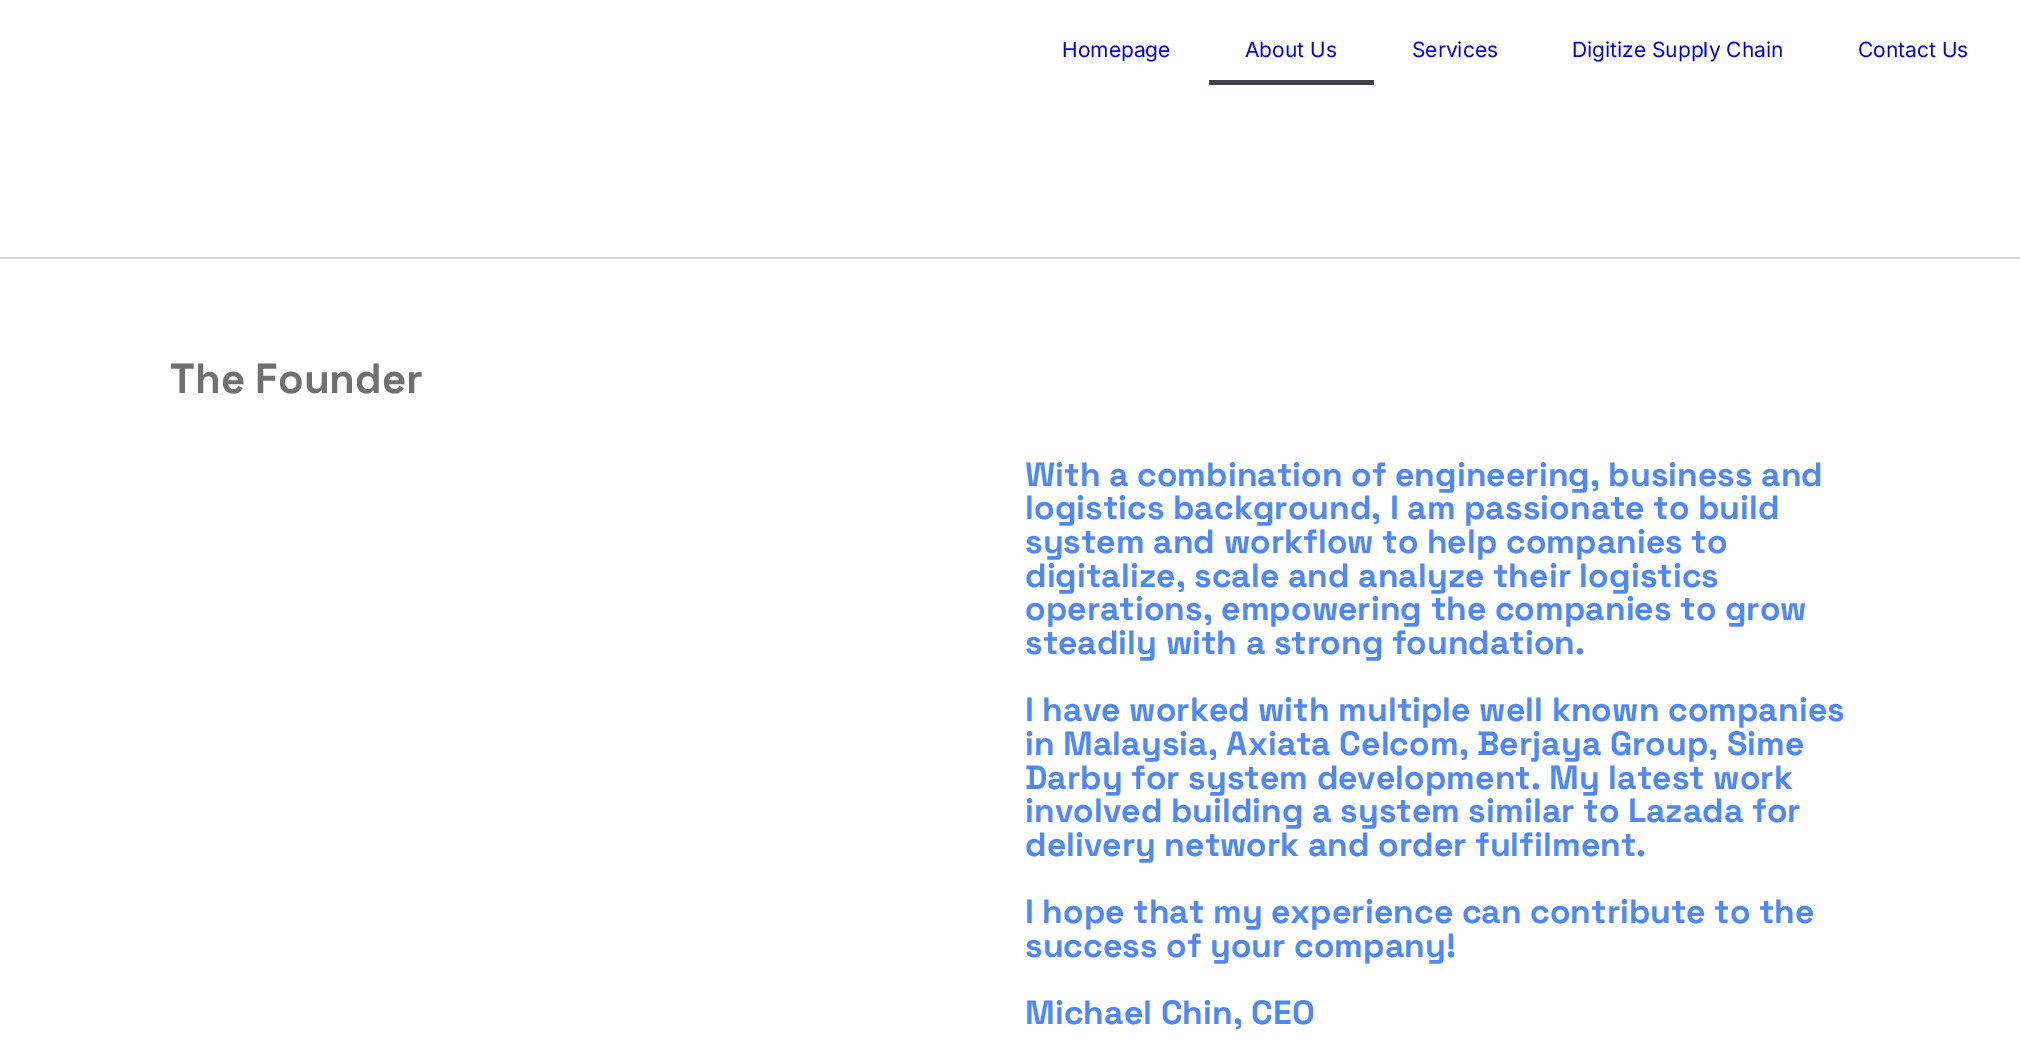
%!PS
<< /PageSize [2020 1050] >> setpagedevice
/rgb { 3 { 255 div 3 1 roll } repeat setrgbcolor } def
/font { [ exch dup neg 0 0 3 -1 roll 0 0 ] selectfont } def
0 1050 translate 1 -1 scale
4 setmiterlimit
255 255 255 rgb
0 0 2020 1050 rectfill
212 212 212 rgb
0 257 2020 2 rectfill
63 68 75 rgb
1209 80 165 5 rectfill
/Inter-Regular 21 font
0 0 238 rgb
[
  [(Homepage) 1062 57]
  [(About Us) 1245 57]
  [(Services) 1412 57]
  [(Digitize Supply Chain) 1572 57]
  [(Contact Us) 1858 57]
] { aload pop moveto show } forall
/SpaceGrotesk-Bold 42 font
112 112 112 rgb
170 393 moveto (The Founder) show
/SpaceGrotesk-Bold 33.7 font
79 135 255 rgb
[
  [(With a combination of engineering, business and) 1025 486]
  [(logistics background, I am passionate to build) 1025 519]
  [(system and workflow to help companies to) 1025 553]
  [(digitalize, scale and analyze their logistics) 1025 587]
  [(operations, empowering the companies to grow) 1025 620]
  [(steadily with a strong foundation.) 1025 654]
  [(I have worked with multiple well known companies) 1025 721]
  [(in Malaysia, Axiata Celcom, Berjaya Group, Sime) 1025 755]
  [(Darby for system development. My latest work) 1025 789]
  [(involved building a system similar to Lazada for) 1025 822]
  [(delivery network and order fulfilment.) 1025 856]
  [(I hope that my experience can contribute to the) 1025 923]
  [(success of your company!) 1025 957]
  [(Michael Chin, CEO) 1025 1024]
] { aload pop moveto show } forall
showpage
